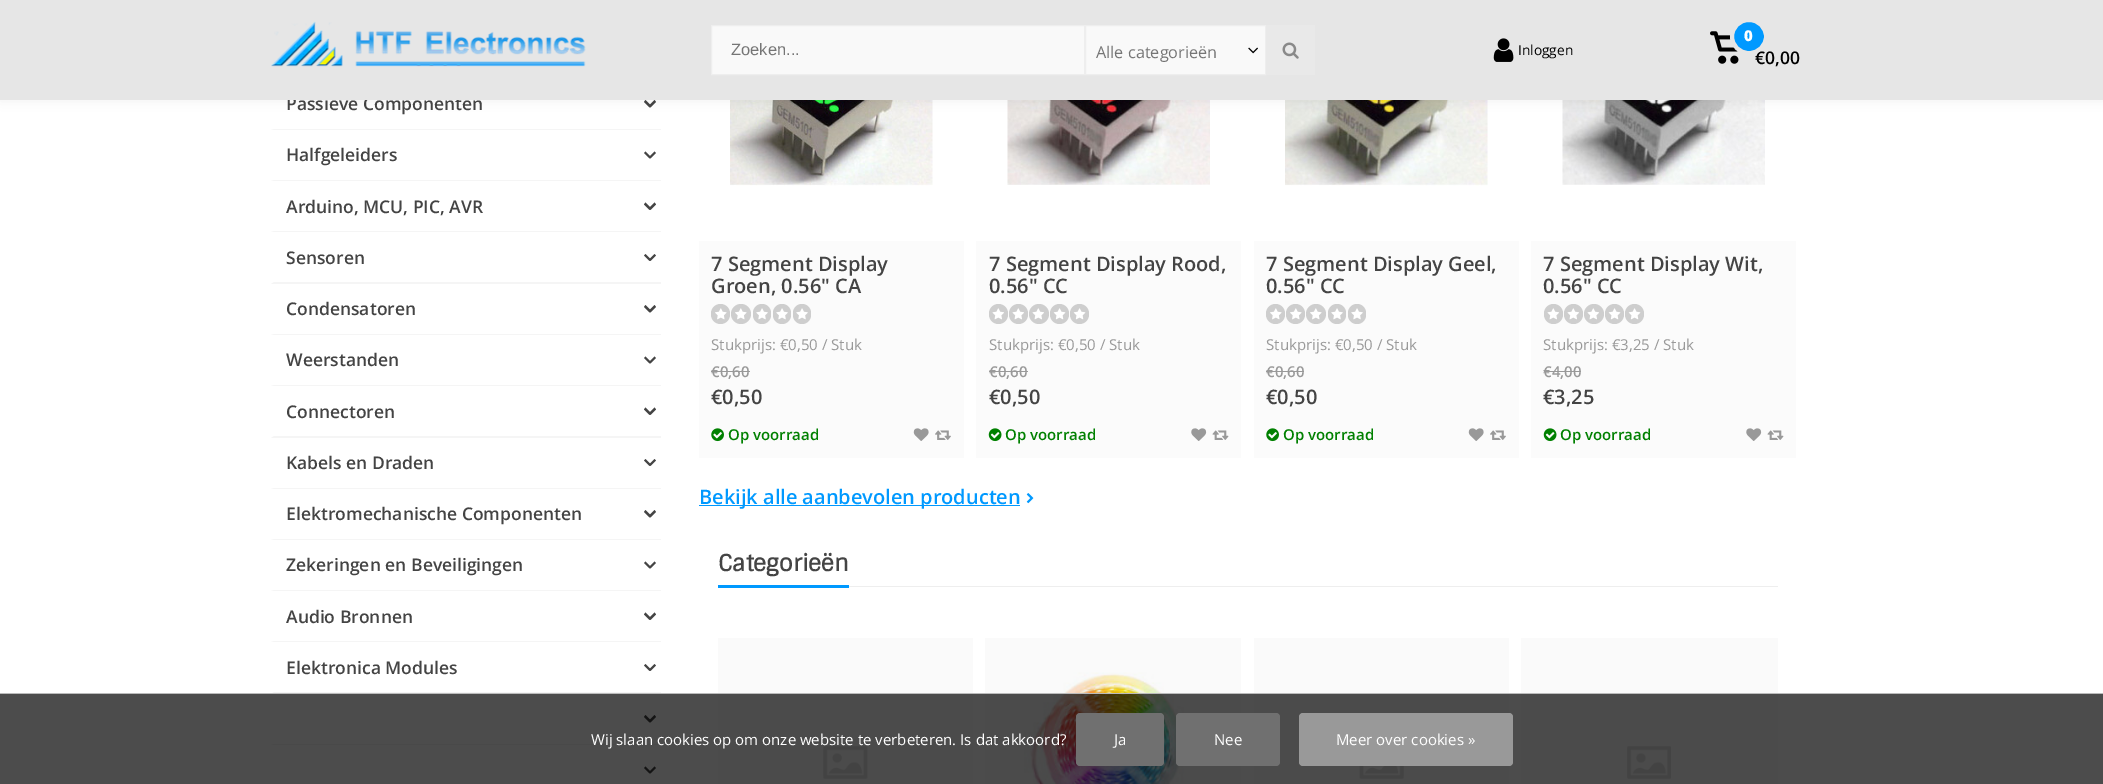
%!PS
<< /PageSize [2103 784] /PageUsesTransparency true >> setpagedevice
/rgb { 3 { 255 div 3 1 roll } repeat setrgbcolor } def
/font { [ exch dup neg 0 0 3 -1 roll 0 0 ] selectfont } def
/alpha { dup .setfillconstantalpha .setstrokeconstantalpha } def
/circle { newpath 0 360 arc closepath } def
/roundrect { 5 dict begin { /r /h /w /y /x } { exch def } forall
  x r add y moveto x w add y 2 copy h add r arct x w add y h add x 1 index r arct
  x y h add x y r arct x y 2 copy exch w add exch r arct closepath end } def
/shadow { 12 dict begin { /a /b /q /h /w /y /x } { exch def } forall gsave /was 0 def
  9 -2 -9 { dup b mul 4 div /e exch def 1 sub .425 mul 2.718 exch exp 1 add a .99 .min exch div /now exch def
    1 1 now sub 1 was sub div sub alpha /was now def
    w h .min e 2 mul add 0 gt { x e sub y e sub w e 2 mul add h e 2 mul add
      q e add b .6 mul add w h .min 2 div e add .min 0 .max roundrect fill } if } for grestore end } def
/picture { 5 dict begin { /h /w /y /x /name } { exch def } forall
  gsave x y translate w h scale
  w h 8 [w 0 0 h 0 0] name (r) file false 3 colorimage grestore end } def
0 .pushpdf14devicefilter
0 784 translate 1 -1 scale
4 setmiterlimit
255 255 255 rgb
0 0 2103 784 rectfill
[
  [1521 638 257 146 250 250 250]
  [1254 638 255 146 250 250 250]
  [985 638 256 146 250 250 250]
  [718 638 255 146 250 250 250]
] { aload pop rgb rectfill } forall
68 68 68 rgb
645.5 100 moveto 651 105.5 lineto 649.5 107.5 lineto 644 102 lineto closepath fill
649 105.5 moveto 654.5 100 lineto 656 102 lineto 650.5 107.5 lineto closepath fill
(img/6.rgb) 730 100 203 86 picture
(img/12.rgb) 1007 100 203 85 picture
(img/18.rgb) 1285 100 203 86 picture
(img/19.rgb) 1562 100 203 85 picture
0 0 0 rgb
0 1 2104 100 0 6 0.05 shadow
245 245 245 rgb
661 130 moveto 271 130 lineto 274 129 lineto 661 129 lineto closepath fill
661 181 moveto 271 181 lineto 274 180 lineto 661 180 lineto closepath fill
68 68 68 rgb
645.5 151.5 moveto 651 157 lineto 649.5 158.5 lineto 644 153 lineto closepath fill
649 157 moveto 654.5 151.5 lineto 656 153 lineto 650.5 158.5 lineto closepath fill
245 245 245 rgb
661 232 moveto 271 232 lineto 274 231 lineto 661 231 lineto closepath fill
68 68 68 rgb
645.5 202.5 moveto 651 208 lineto 649.5 210 lineto 644 204.5 lineto closepath fill
649 208 moveto 654.5 202.5 lineto 656 204.5 lineto 650.5 210 lineto closepath fill
245 245 245 rgb
661 284 moveto 271 284 lineto 274 282 lineto 661 282 lineto closepath fill
68 68 68 rgb
645.5 254 moveto 651 259.5 lineto 649.5 261 lineto 644 255.5 lineto closepath fill
649 259.5 moveto 654.5 254 lineto 656 255.5 lineto 650.5 261 lineto closepath fill
245 245 245 rgb
661 335 moveto 271 335 lineto 274 334 lineto 661 334 lineto closepath fill
68 68 68 rgb
645.5 305 moveto 651 310.5 lineto 649.5 312.5 lineto 644 307 lineto closepath fill
649 310.5 moveto 654.5 305 lineto 656 307 lineto 650.5 312.5 lineto closepath fill
245 245 245 rgb
661 386 moveto 271 386 lineto 274 385 lineto 661 385 lineto closepath fill
68 68 68 rgb
645.5 356.5 moveto 651 362 lineto 649.5 363.5 lineto 644 358 lineto closepath fill
649 362 moveto 654.5 356.5 lineto 656 358 lineto 650.5 363.5 lineto closepath fill
245 245 245 rgb
661 438 moveto 271 438 lineto 274 436 lineto 661 436 lineto closepath fill
68 68 68 rgb
645.5 407.5 moveto 651 413 lineto 649.5 415 lineto 644 409.5 lineto closepath fill
649 413 moveto 654.5 407.5 lineto 656 409.5 lineto 650.5 415 lineto closepath fill
245 245 245 rgb
661 489 moveto 271 489 lineto 274 488 lineto 661 488 lineto closepath fill
68 68 68 rgb
645.5 459 moveto 651 464.5 lineto 649.5 466 lineto 644 460.5 lineto closepath fill
649 464.5 moveto 654.5 459 lineto 656 460.5 lineto 650.5 466 lineto closepath fill
245 245 245 rgb
661 540 moveto 271 540 lineto 274 539 lineto 661 539 lineto closepath fill
68 68 68 rgb
645.5 510 moveto 651 515.5 lineto 649.5 517.5 lineto 644 512 lineto closepath fill
649 515.5 moveto 654.5 510 lineto 656 512 lineto 650.5 517.5 lineto closepath fill
245 245 245 rgb
661 591 moveto 271 591 lineto 274 590 lineto 661 590 lineto closepath fill
68 68 68 rgb
645.5 561.5 moveto 651 567 lineto 649.5 568.5 lineto 644 563 lineto closepath fill
649 567 moveto 654.5 561.5 lineto 656 563 lineto 650.5 568.5 lineto closepath fill
245 245 245 rgb
661 642 moveto 271 642 lineto 274 641 lineto 661 641 lineto closepath fill
68 68 68 rgb
645.5 612.5 moveto 651 618 lineto 649.5 620 lineto 644 614.5 lineto closepath fill
649 618 moveto 654.5 612.5 lineto 656 614.5 lineto 650.5 620 lineto closepath fill
245 245 245 rgb
661 694 moveto 271 694 lineto 274 692 lineto 661 692 lineto closepath fill
68 68 68 rgb
645.5 664 moveto 651 669.5 lineto 649.5 671 lineto 644 665.5 lineto closepath fill
649 669.5 moveto 654.5 664 lineto 656 665.5 lineto 650.5 671 lineto closepath fill
245 245 245 rgb
661 745 moveto 271 745 lineto 274 744 lineto 661 744 lineto closepath fill
68 68 68 rgb
645.5 715 moveto 651 720.5 lineto 649.5 722.5 lineto 644 717 lineto closepath fill
649 720.5 moveto 654.5 715 lineto 656 717 lineto 650.5 722.5 lineto closepath 645.5 766.5 moveto 651 772 lineto 649.5 773.5 lineto 644 768 lineto closepath fill
649 772 moveto 654.5 766.5 lineto 656 768 lineto 650.5 773.5 lineto closepath fill
251 251 251 rgb
699 241 265 217 rectfill
206 206 206 rgb
711 304 19 20 9.5 roundrect fill
(img/7.rgb) 715 308 12 12 picture
741 314 10 circle fill
(img/7.rgb) 735 308 12 12 picture
753 304 18 20 9 roundrect fill
(img/8.rgb) 756 308 12 12 picture
773 304 18 20 9 roundrect fill
(img/8.rgb) 776 308 12 12 picture
793 304 18 20 9 roundrect fill
(img/8.rgb) 796 308 12 12 picture
153 153 153 rgb
711 371 39 1 rectfill
(img/9.rgb) 711 428 13 14 picture
(img/10.rgb) 913 428 16 13 picture
(img/11.rgb) 935 430 16 10 picture
251 251 251 rgb
976 241 265 217 rectfill
206 206 206 rgb
989 304 19 20 9.5 roundrect fill
(img/13.rgb) 992 308 12 12 picture
1009 304 19 20 9.5 roundrect fill
(img/13.rgb) 1012 308 12 12 picture
1039 314 10 circle fill
(img/13.rgb) 1032 308 12 12 picture
1050 304 19 20 9.5 roundrect fill
(img/14.rgb) 1053 308 13 12 picture
1070 304 19 20 9.5 roundrect fill
(img/14.rgb) 1073 308 13 12 picture
153 153 153 rgb
989 371 39 1 rectfill
(img/15.rgb) 988 428 14 14 picture
(img/16.rgb) 1191 428 16 13 picture
(img/17.rgb) 1212 430 17 10 picture
251 251 251 rgb
1254 241 265 217 rectfill
206 206 206 rgb
1266 304 19 20 9.5 roundrect fill
(img/7.rgb) 1270 308 12 12 picture
1286 304 19 20 9.5 roundrect fill
(img/7.rgb) 1290 308 12 12 picture
1316 314 10 circle fill
(img/7.rgb) 1310 308 12 12 picture
1328 304 18 20 9 roundrect fill
(img/8.rgb) 1331 308 12 12 picture
1348 304 18 20 9 roundrect fill
(img/8.rgb) 1351 308 12 12 picture
153 153 153 rgb
1266 371 38 1 rectfill
(img/9.rgb) 1266 428 13 14 picture
(img/10.rgb) 1468 428 16 13 picture
(img/11.rgb) 1490 430 16 10 picture
251 251 251 rgb
1531 241 265 217 rectfill
206 206 206 rgb
1544 304 19 20 9.5 roundrect fill
(img/13.rgb) 1547 308 12 12 picture
1564 304 19 20 9.5 roundrect fill
(img/13.rgb) 1567 308 12 12 picture
1594 314 10 circle fill
(img/13.rgb) 1587 308 12 12 picture
1605 304 19 20 9.5 roundrect fill
(img/14.rgb) 1608 308 13 12 picture
1625 304 19 20 9.5 roundrect fill
(img/14.rgb) 1628 308 13 12 picture
153 153 153 rgb
1544 371 37 1 rectfill
(img/15.rgb) 1543 428 14 14 picture
(img/16.rgb) 1746 428 16 13 picture
(img/17.rgb) 1767 430 17 10 picture
0 153 255 rgb
699 505 321 1 rectfill
(img/20.rgb) 1026 493 8 11 picture
238 238 238 rgb
849 586 929 1 rectfill
0 153 255 rgb
718 585 131 3 rectfill
(img/21.rgb) 823 746 45 33 picture
(img/22.rgb) 1024 672 160 112 picture
(img/23.rgb) 1359 766 45 13 picture
(img/24.rgb) 1627 746 44 33 picture
0.7 alpha
0 0 0 rgb
0 694 2103 90 rectfill
1 alpha
187 187 187 rgb
0 693 2103 1 rectfill
112 112 112 rgb
1076 713 88 53 4 roundrect fill
1176 713 104 53 4 roundrect fill
153 153 153 rgb
1299 713 214 53 4 roundrect fill
/OpenSans-SemiBold 17.5 font
68 68 68 rgb
286 110 moveto (Passieve Componenten) show
230 230 230 rgb
0 0 2103 100 rectfill
(img/5.rgb) 1710 31 29 33 picture
0 0 0 rgb
1755 64 moveto (€0,00) show
0 153 255 rgb
1732 20 34 33 16.5 roundrect gsave fill grestore
230 230 230 rgb
4 setlinewidth
stroke
/OpenSans-ExtraBold 15 font
255 255 255 rgb
1744 41 moveto (0) show
/OpenSans-Regular 13.75 font
0 0 0 rgb
1518 55 moveto (Inloggen) show
(img/4.rgb) 1493 38 21 24 picture
249 249 249 rgb
1085.5 25.5 moveto 1265.5 25.5 lineto 1265.5 74.5 lineto 1085.5 74.5 lineto closepath gsave fill grestore
238 238 238 rgb
1 setlinewidth
stroke
(img/2.rgb) 1248 47 10 7 picture
/OpenSans-Regular 16.25 font
117 117 117 rgb
1096 58 moveto (Alle categorieën) show
249 249 249 rgb
711.5 25.5 moveto 1084.5 25.5 lineto 1084.5 74.5 lineto 711.5 74.5 lineto closepath gsave fill grestore
238 238 238 rgb
stroke
/LiberationSans-Regular 16.5 font
117 117 117 rgb
731 55 moveto (Zoeken...) show
(img/1.rgb) 271 21 315 46 picture
233 233 233 rgb
1266 25 49 50 rectfill
(img/3.rgb) 1282 42 17 17 picture
/OpenSans-SemiBold 17.5 font
68 68 68 rgb
[
  [(Halfgeleiders) 286 161]
  [(Arduino, MCU, PIC, AVR) 286 213]
  [(Sensoren) 286 264]
  [(Condensatoren) 286 315]
  [(Weerstanden) 286 366]
  [(Connectoren) 286 418]
  [(Kabels en Draden) 286 469]
  [(Elektromechanische Componenten) 286 520]
  [(Zekeringen en Beveiligingen) 286 571]
  [(Audio Bronnen) 286 623]
  [(Elektronica Modules) 286 674]
] { aload pop moveto show } forall
/OpenSans-SemiBold 20 font
711 271 moveto (7 Segment Display) show
711 293 moveto (Groen, 0.56" CA) show
/OpenSans-Regular 15 font
153 153 153 rgb
711 350 moveto (Stukprijs: €0,50 / Stuk) show
/OpenSans-SemiBold 15 font
711 377 moveto (€0,60) show
/OpenSans-SemiBold 20 font
68 68 68 rgb
711 404 moveto (€0,50) show
/OpenSans-SemiBold 15 font
0 128 0 rgb
728 440 moveto (Op voorraad) show
/OpenSans-SemiBold 20 font
68 68 68 rgb
989 271 moveto (7 Segment Display Rood,) show
989 293 moveto (0.56" CC) show
/OpenSans-Regular 15 font
153 153 153 rgb
989 350 moveto (Stukprijs: €0,50 / Stuk) show
/OpenSans-SemiBold 15 font
989 377 moveto (€0,60) show
/OpenSans-SemiBold 20 font
68 68 68 rgb
989 404 moveto (€0,50) show
/OpenSans-SemiBold 15 font
0 128 0 rgb
1005 440 moveto (Op voorraad) show
/OpenSans-SemiBold 20 font
68 68 68 rgb
1266 271 moveto (7 Segment Display Geel,) show
1266 293 moveto (0.56" CC) show
/OpenSans-Regular 15 font
153 153 153 rgb
1266 350 moveto (Stukprijs: €0,50 / Stuk) show
/OpenSans-SemiBold 15 font
1266 377 moveto (€0,60) show
/OpenSans-SemiBold 20 font
68 68 68 rgb
1266 404 moveto (€0,50) show
/OpenSans-SemiBold 15 font
0 128 0 rgb
1283 440 moveto (Op voorraad) show
/OpenSans-SemiBold 20 font
68 68 68 rgb
1543 271 moveto (7 Segment Display Wit,) show
1543 293 moveto (0.56" CC) show
/OpenSans-Regular 15 font
153 153 153 rgb
1543 350 moveto (Stukprijs: €3,25 / Stuk) show
/OpenSans-SemiBold 15 font
1543 377 moveto (€4,00) show
/OpenSans-SemiBold 20 font
68 68 68 rgb
1543 404 moveto (€3,25) show
/OpenSans-SemiBold 15 font
0 128 0 rgb
1560 440 moveto (Op voorraad) show
/OpenSans-SemiBold 20 font
0 153 255 rgb
699 504 moveto (Bekijk alle aanbevolen producten) show
/Sintony-Bold 22.5 font
68 68 68 rgb
718 571 moveto (Categorieën) show
/OpenSans-Regular 15 font
255 255 255 rgb
[
  [(Wij slaan cookies op om onze website te verbeteren. Is dat akkoord?) 591 745]
  [(Ja) 1114 745]
  [(Nee) 1214 745]
  [(Meer over cookies ») 1336 745]
] { aload pop moveto show } forall
.poppdf14devicefilter showpage
